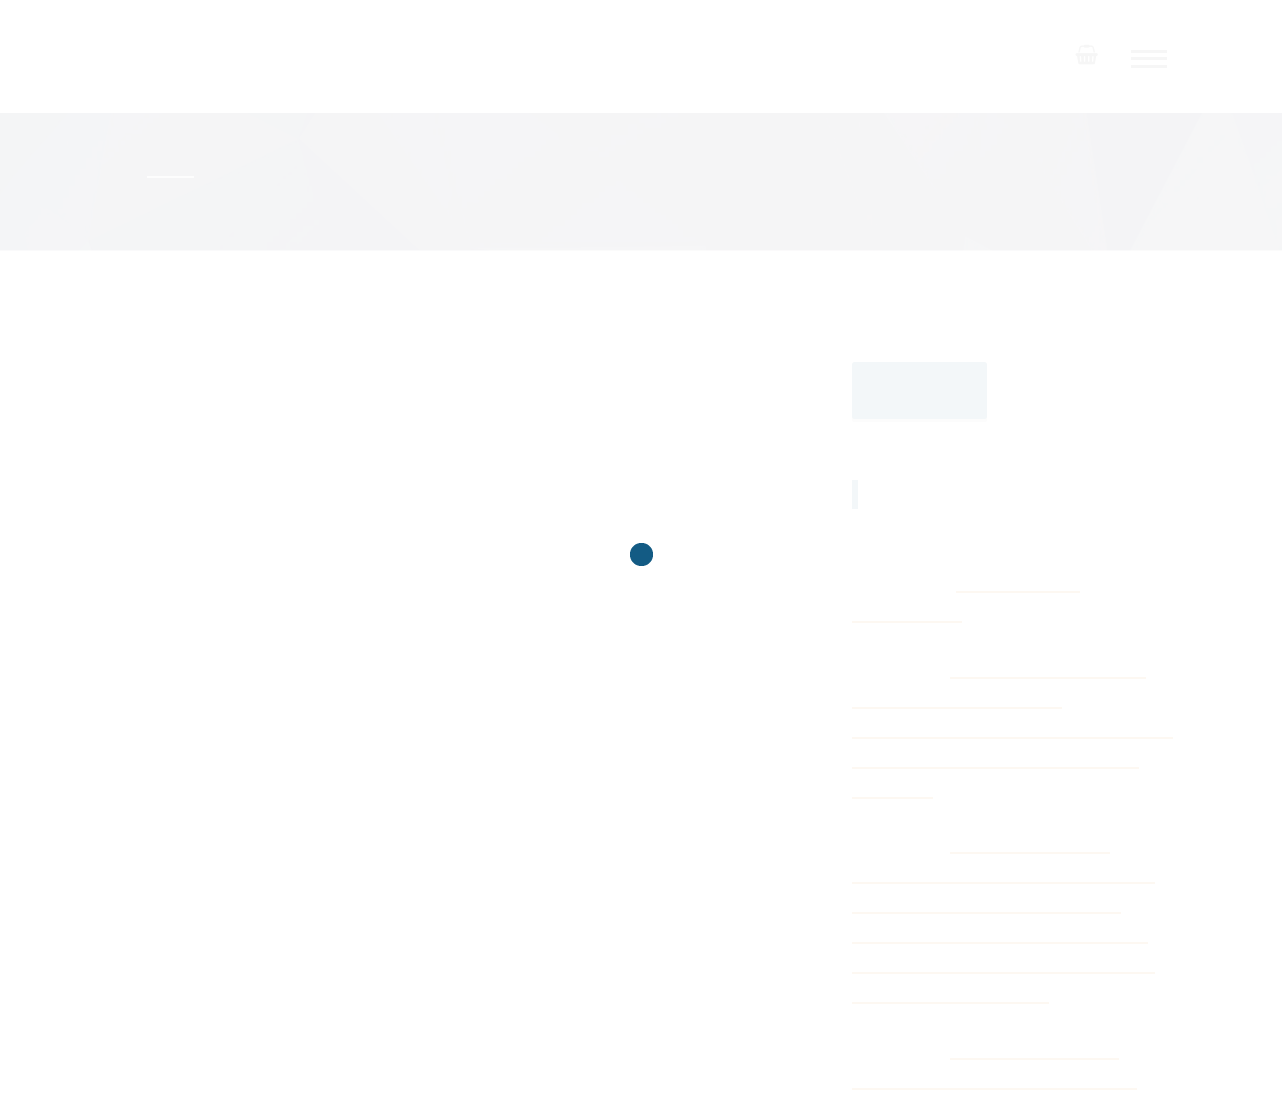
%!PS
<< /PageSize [1282 1110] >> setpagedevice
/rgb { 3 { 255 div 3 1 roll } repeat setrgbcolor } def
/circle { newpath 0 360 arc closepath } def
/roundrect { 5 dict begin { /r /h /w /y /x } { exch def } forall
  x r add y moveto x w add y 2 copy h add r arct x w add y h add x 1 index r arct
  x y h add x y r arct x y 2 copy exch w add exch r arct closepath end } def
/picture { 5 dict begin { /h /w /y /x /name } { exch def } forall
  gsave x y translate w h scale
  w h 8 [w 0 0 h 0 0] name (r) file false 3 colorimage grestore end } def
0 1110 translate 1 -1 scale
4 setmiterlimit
255 255 255 rgb
0 0 1282 1110 rectfill
(img/1.rgb) 1075 44 23 21 picture
[
  [1131 57 36 3 246 246 246]
  [1131 50 36 3 246 246 246]
  [1131 65 36 3 246 246 246]
] { aload pop rgb rectfill } forall
(img/2.rgb) 0 113 1282 138 picture
253 253 253 rgb
147 176 47 2 rectfill
252 252 252 rgb
852 416 moveto 852 419 lineto 852 421 853 422 855 422 curveto 984 422 lineto 986 422 987 421 987 419 curveto 987 416 lineto 987 417 986 418 984 418 curveto 855 418 lineto 853 418 852 417 852 416 curveto closepath fill
243 247 249 rgb
852 362 135 57 3 roundrect fill
[
  [852 480 6 29 243 247 249]
  [956 591 124 2 253 248 242]
  [852 621 110 2 253 248 242]
  [950 677 196 2 253 248 242]
  [852 707 210 2 253 248 242]
  [852 737 321 2 253 248 242]
  [852 767 287 2 253 248 242]
  [852 797 81 2 253 248 242]
  [950 852 160 2 253 248 242]
  [852 882 303 2 253 248 242]
  [852 912 269 2 253 248 242]
  [852 942 296 2 253 248 242]
  [852 972 303 2 253 248 242]
  [852 1002 197 2 253 248 242]
  [950 1058 169 2 253 248 242]
  [852 1088 285 2 253 248 242]
] { aload pop rgb rectfill } forall
19 91 132 rgb
641.5 554.5 11.5 circle fill
showpage
